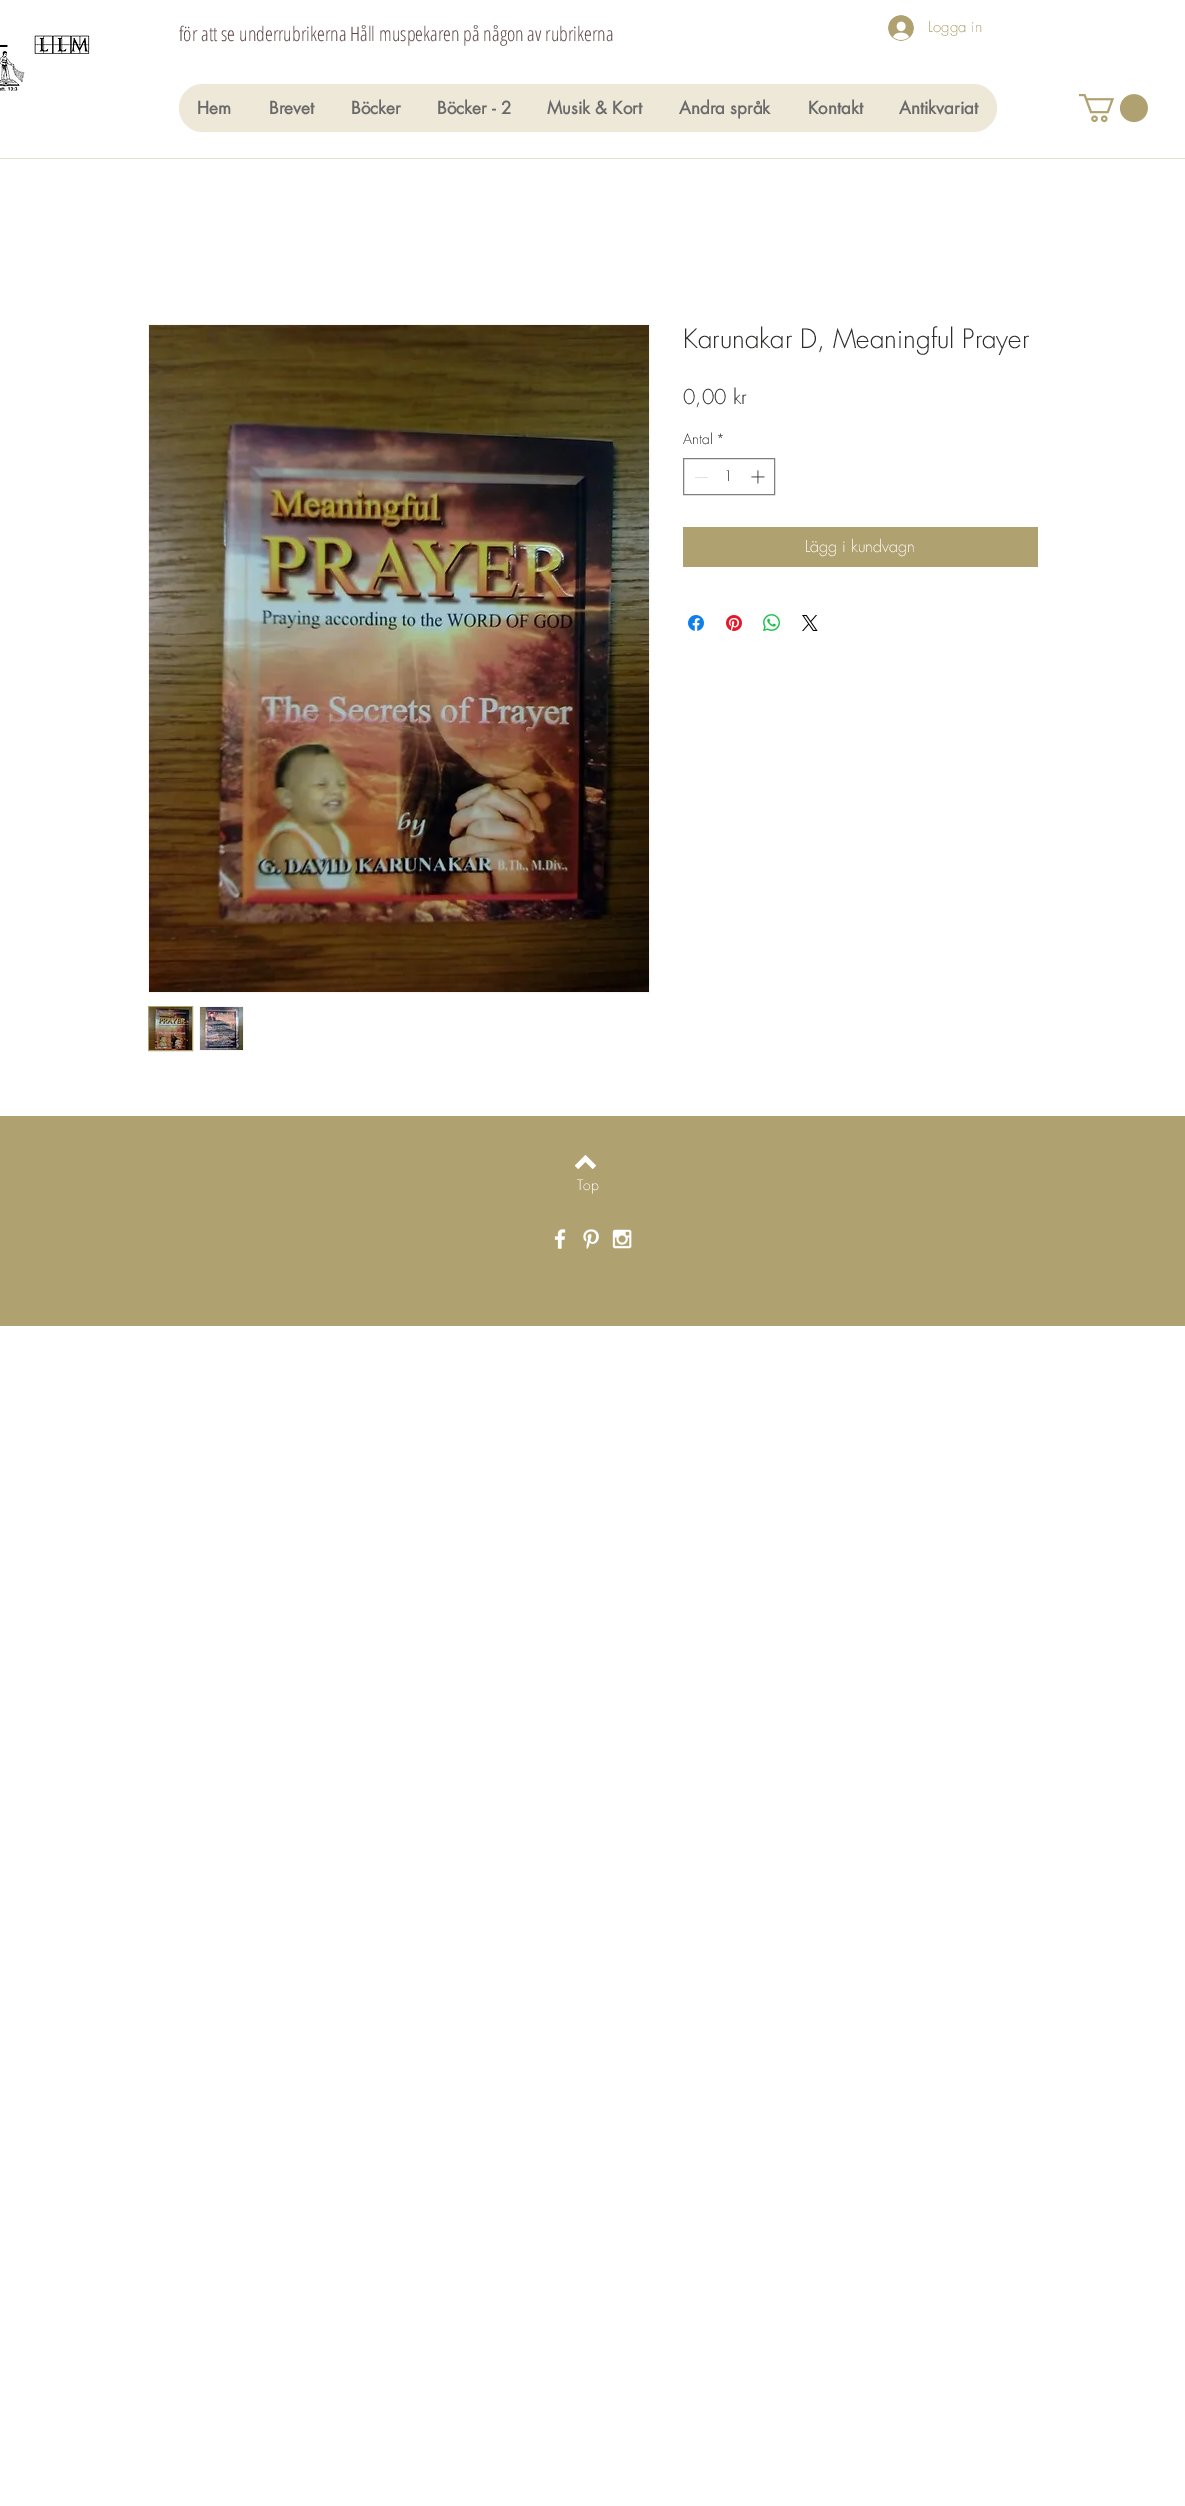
%!PS
<< /PageSize [1185 2506] >> setpagedevice
/rgb { 3 { 255 div 3 1 roll } repeat setrgbcolor } def
/font { [ exch dup neg 0 0 3 -1 roll 0 0 ] selectfont } def
/roundrect { 5 dict begin { /r /h /w /y /x } { exch def } forall
  x r add y moveto x w add y 2 copy h add r arct x w add y h add x 1 index r arct
  x y h add x y r arct x y 2 copy exch w add exch r arct closepath end } def
/picture { 5 dict begin { /h /w /y /x /name } { exch def } forall
  gsave x y translate w h scale
  w h 8 [w 0 0 h 0 0] name (r) file false 3 colorimage grestore end } def
0 2506 translate 1 -1 scale
4 setmiterlimit
255 255 255 rgb
0 0 1185 2506 rectfill
(img/1.rgb) 0 35 90 56 picture
(img/2.rgb) 888 15 26 26 picture
238 232 216 rgb
179 84 818 48 24 roundrect fill
(img/3.rgb) 1079 94 69 29 picture
229 225 211 rgb
0 158 1185 1 rectfill
246 245 245 rgb
148.5 324.5 501 668 rectstroke
(img/4.rgb) 149 325 500 667 picture
176 161 113 rgb
148.5 1006.5 44 44 rectstroke
(img/5.rgb) 149 1007 43 43 picture
246 245 245 rgb
199 1006 45 45 rectfill
(img/6.rgb) 200 1007 43 43 picture
128 128 128 rgb
683.5 458.5 91 36 rectstroke
227 227 227 rgb
695 477 13 1 rectfill
(img/7.rgb) 751 470 14 14 picture
176 161 113 rgb
683 527 355 40 rectfill
(img/8.rgb) 688 615 16 16 picture
(img/9.rgb) 726 615 16 16 picture
(img/10.rgb) 763 614 17 17 picture
(img/11.rgb) 802 615 16 16 picture
0 1116 1185 210 rectfill
(img/12.rgb) 575 1155 21 14 picture
(img/13.rgb) 554 1229 12 20 picture
(img/14.rgb) 583 1229 16 20 picture
(img/15.rgb) 612 1229 20 20 picture
/OpenSansCondensed-Light 20 font
94 69 69 rgb
179 41 moveto (för att se underrubrikerna Håll muspekaren på någon av rubrikerna) show
/futura-Light 15 font
176 161 113 rgb
928 32 moveto (Logga in) show
/futura-Bold 17 font
105 105 105 rgb
[
  [(Hem) 197 114]
  [(Brevet) 269 114]
  [(Böcker) 351 114]
  [(Böcker - 2) 437 114]
  [(Musik & Kort) 547 114]
  [(Andra språk) 679 114]
  [(Kontakt) 808 114]
  [(Antikvariat) 899 114]
] { aload pop moveto show } forall
/futura-Light 26 font
44 44 43 rgb
683 348 moveto (Karunakar D, Meaningful Prayer) show
/futura-Light 20 font
683 404 moveto (0,00 kr) show
/futura-Light 14 font
[
  [(Antal) 683 444]
  [(*) 716 444]
  [(1) 724 481]
] { aload pop moveto show } forall
/futura-Light 16 font
255 255 255 rgb
805 552 moveto (Lägg i kundvagn) show
/futura-Light 14 font
577 1190 moveto (Top) show
showpage
